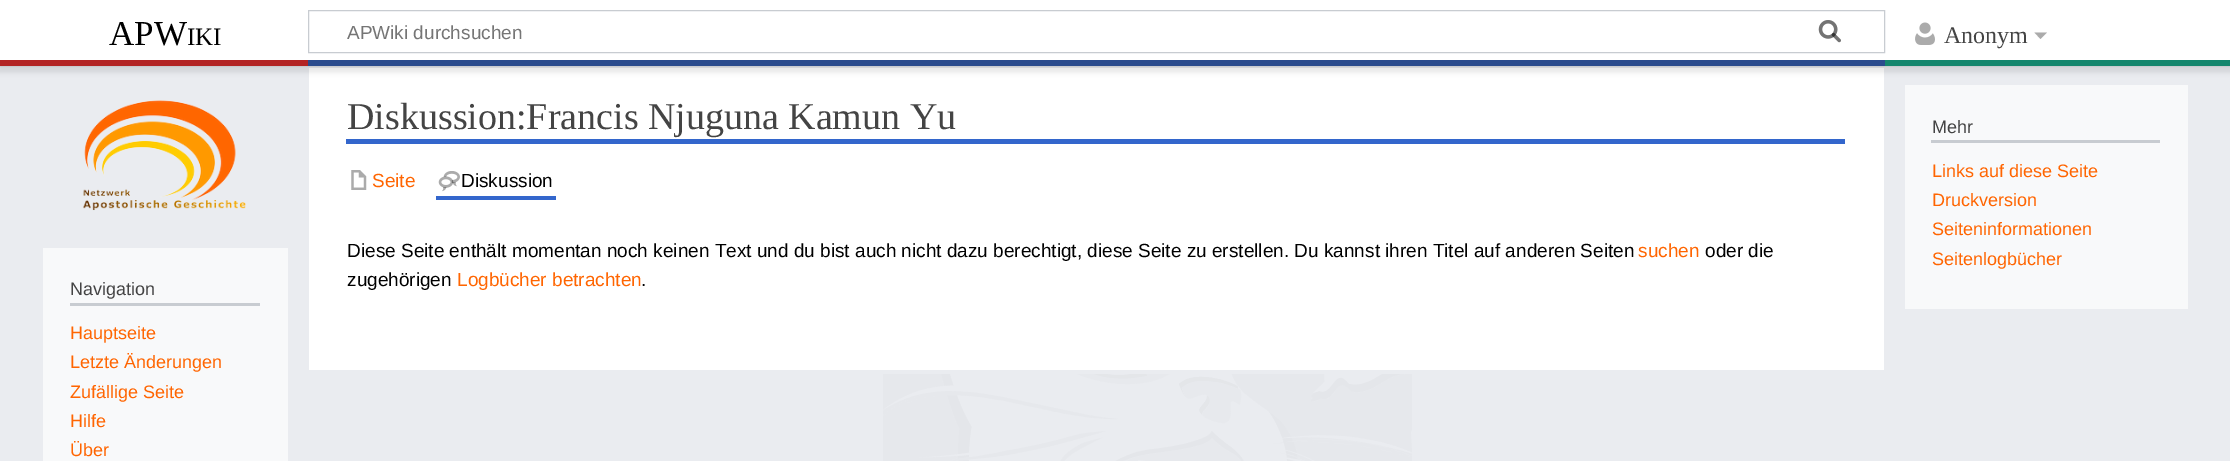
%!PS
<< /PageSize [2230 461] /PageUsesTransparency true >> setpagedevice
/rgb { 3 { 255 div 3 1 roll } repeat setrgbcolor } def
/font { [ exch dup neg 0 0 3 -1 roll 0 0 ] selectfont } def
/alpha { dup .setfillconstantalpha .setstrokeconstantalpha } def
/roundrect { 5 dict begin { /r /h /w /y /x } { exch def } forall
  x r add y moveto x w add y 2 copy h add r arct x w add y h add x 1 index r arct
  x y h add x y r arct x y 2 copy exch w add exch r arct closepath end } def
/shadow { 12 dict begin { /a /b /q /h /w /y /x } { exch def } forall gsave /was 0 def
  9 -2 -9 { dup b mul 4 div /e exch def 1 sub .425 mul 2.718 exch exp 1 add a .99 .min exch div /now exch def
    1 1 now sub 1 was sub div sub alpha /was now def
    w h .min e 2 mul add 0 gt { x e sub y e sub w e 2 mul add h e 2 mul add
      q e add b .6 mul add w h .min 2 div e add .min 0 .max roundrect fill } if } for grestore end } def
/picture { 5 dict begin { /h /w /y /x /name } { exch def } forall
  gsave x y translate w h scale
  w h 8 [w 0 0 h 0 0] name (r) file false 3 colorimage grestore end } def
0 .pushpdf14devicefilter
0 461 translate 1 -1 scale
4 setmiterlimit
234 236 240 rgb
0 0 2230 461 rectfill
255 255 255 rgb
309 68 1575 302 rectfill
0 0 0 rgb
0 60 2230 6 0 1 0.2 shadow
-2 61 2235 12 0 2 0.07 shadow
255 255 255 rgb
0 0 2230 60 rectfill
200 204 209 rgb
308.5 10.5 1576 42 rectstroke
(img/1.rgb) 1818 20 23 23 picture
(img/2.rgb) 1818 20 23 23 picture
(img/3.rgb) 1915 22 20 23 picture
171 171 171 rgb
2047 32.5 moveto 2040.5 39 lineto 2034.5 32.5 lineto closepath fill
[
  [0 60 308 6 179 36 36]
  [308 60 1577 6 42 75 141]
  [1885 60 345 6 20 134 109]
] { aload pop rgb rectfill } forall
(img/4.rgb) 883 374 529 87 picture
51 102 204 rgb
346 139 1499 5 rectfill
(img/5.rgb) 351 170 16 20 picture
436 196 120 4 rectfill
(img/6.rgb) 438 171 22 21 picture
248 249 250 rgb
1905 85 283 224 rectfill
200 204 209 rgb
1931 140 229 3 rectfill
(img/7.rgb) 83 100 163 111 picture
248 249 250 rgb
43 248 245 213 rectfill
200 204 209 rgb
70 303 190 3 rectfill
/LiberationSerif-Regular 35 font
0 0 0 rgb
109 45 moveto (APW) show
/LiberationSerif-Regular 25 font
187 45 moveto (IKI) show
/LiberationSans-Regular 19 font
117 117 117 rgb
347 39 moveto (APWiki durchsuchen) show
/LiberationSerif-Regular 24 font
68 68 68 rgb
1944 43 moveto (Anonym) show
/LiberationSerif-Regular 38 font
347 129 moveto (Diskussion:Francis Njuguna Kamun Yu) show
/LiberationSans-Regular 19 font
255 101 1 rgb
372 187 moveto (Seite) show
0 0 0 rgb
461 187 moveto (Diskussion) show
347 257 moveto (Diese Seite enthält momentan noch keinen Text und du bist auch nicht dazu berechtigt, diese Seite zu erstellen. Du kannst ihren Titel auf anderen Seiten) show
255 101 1 rgb
1638 257 moveto (suchen) show
0 0 0 rgb
1705 257 moveto (oder die) show
347 286 moveto (zugehörigen) show
255 101 1 rgb
457 286 moveto (Logbücher betrachten) show
0 0 0 rgb
641 286 moveto (.) show
/LiberationSans-Regular 18 font
68 68 68 rgb
1932 133 moveto (Mehr) show
255 101 1 rgb
[
  [(Links auf diese Seite) 1932 177]
  [(Druckversion) 1932 206]
  [(Seiteninformationen) 1932 235]
  [(Seitenlogbücher) 1932 265]
] { aload pop moveto show } forall
68 68 68 rgb
70 295 moveto (Navigation) show
255 101 1 rgb
[
  [(Hauptseite) 70 339]
  [(Letzte Änderungen) 70 368]
  [(Zufällige Seite) 70 398]
  [(Hilfe) 70 427]
  [(Über) 70 456]
] { aload pop moveto show } forall
.poppdf14devicefilter showpage
